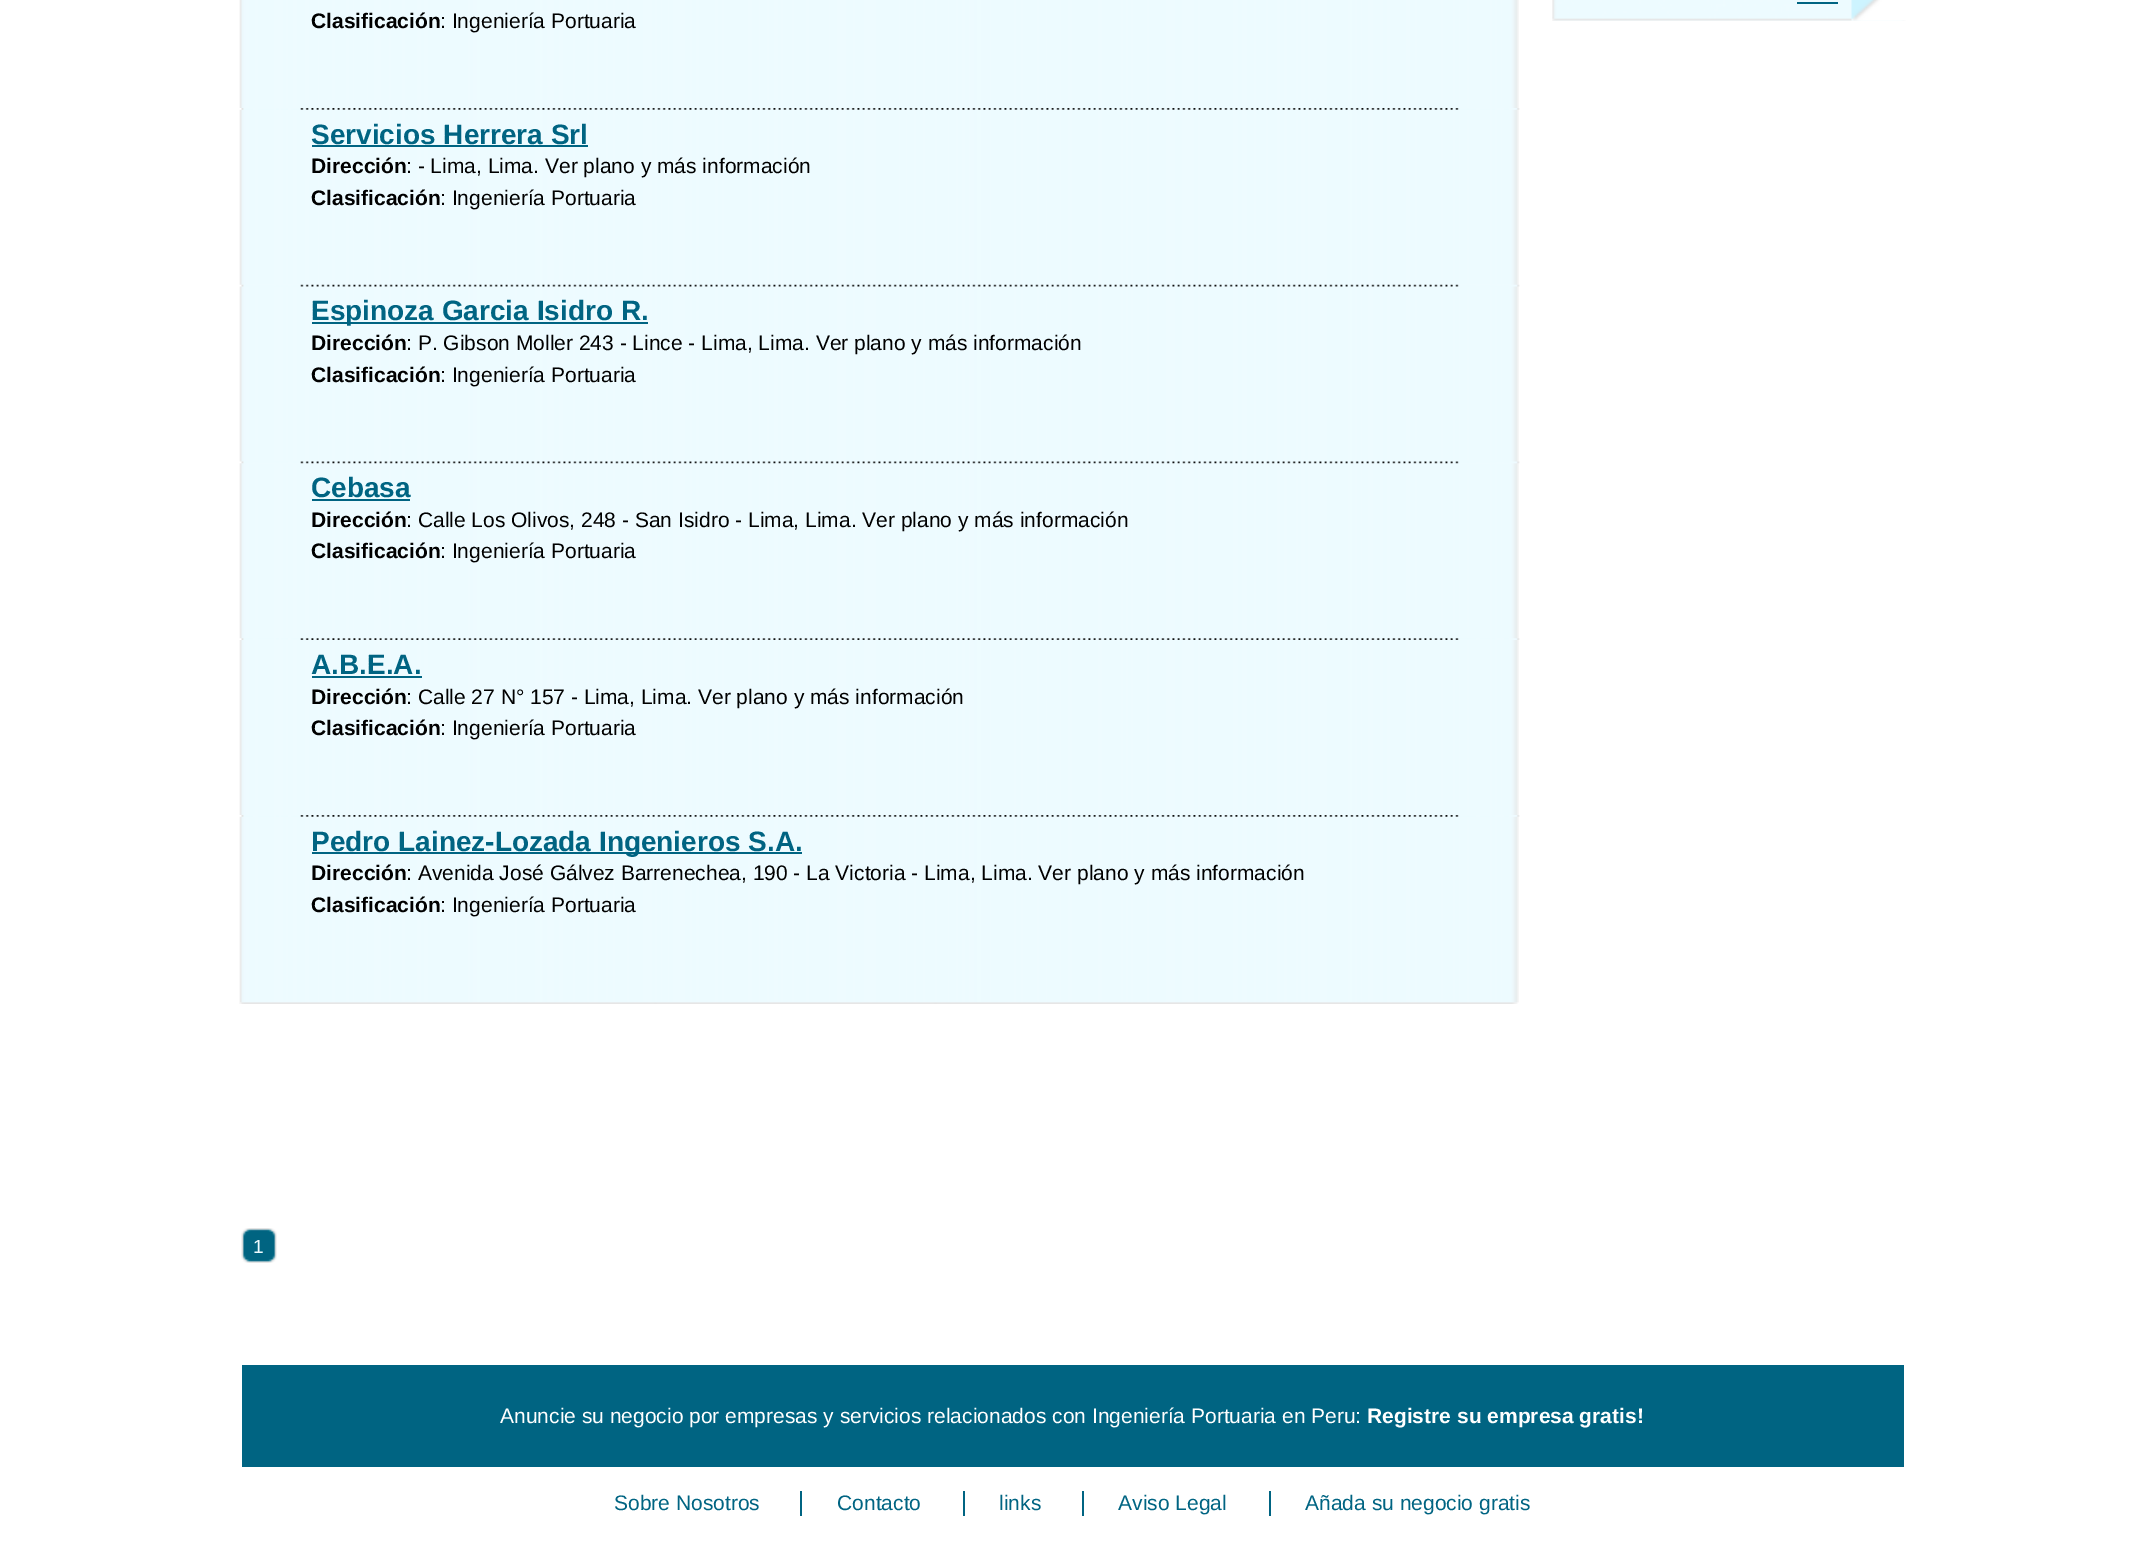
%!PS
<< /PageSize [2143 1557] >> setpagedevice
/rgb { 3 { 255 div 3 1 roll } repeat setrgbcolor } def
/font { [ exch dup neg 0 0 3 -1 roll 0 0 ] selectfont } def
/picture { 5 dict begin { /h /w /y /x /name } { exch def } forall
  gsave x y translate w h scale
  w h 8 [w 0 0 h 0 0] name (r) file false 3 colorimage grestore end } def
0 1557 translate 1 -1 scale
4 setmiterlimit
255 255 255 rgb
0 0 2143 1557 rectfill
(img/1.rgb) 239 0 1280 1004 picture
(img/2.rgb) 239 108 1281 2 picture
0 100 130 rgb
312 145 276 2 rectfill
(img/3.rgb) 239 284 1281 3 picture
312 322 336 2 rectfill
(img/4.rgb) 239 461 1281 3 picture
312 499 98 2 rectfill
(img/5.rgb) 239 638 1281 2 picture
312 676 110 2 rectfill
(img/2.rgb) 239 815 1281 2 picture
312 852 490 2 rectfill
(img/6.rgb) 240 1002 1279 2 picture
(img/7.rgb) 241 1228 36 35 picture
(img/8.rgb) 1552 20 354 1 picture
(img/9.rgb) 1552 0 354 21 picture
[
  [1797 2 41 2 0 100 130]
  [242 1365 1662 102 0 100 130]
  [800 1491 2 25 0 100 130]
  [963 1491 2 25 0 100 130]
  [1082 1491 2 25 0 100 130]
  [1269 1491 2 25 0 100 130]
] { aload pop rgb rectfill } forall
/LiberationSans-Bold 21 font
0 0 0 rgb
311 28 moveto (Clasificación) show
/LiberationSans-Regular 21 font
440 28 moveto (: Ingeniería Portuaria) show
/LiberationSans-Bold 28 font
0 100 130 rgb
311 144 moveto (Servicios Herrera Srl) show
/LiberationSans-Bold 21 font
0 0 0 rgb
311 173 moveto (Dirección) show
/LiberationSans-Regular 21 font
406 173 moveto (: - Lima, Lima. Ver plano y más información) show
/LiberationSans-Bold 21 font
311 205 moveto (Clasificación) show
/LiberationSans-Regular 21 font
440 205 moveto (: Ingeniería Portuaria) show
/LiberationSans-Bold 28 font
0 100 130 rgb
311 320 moveto (Espinoza Garcia Isidro R.) show
/LiberationSans-Bold 21 font
0 0 0 rgb
311 350 moveto (Dirección) show
/LiberationSans-Regular 21 font
406 350 moveto (: P. Gibson Moller 243 - Lince - Lima, Lima. Ver plano y más información) show
/LiberationSans-Bold 21 font
311 382 moveto (Clasificación) show
/LiberationSans-Regular 21 font
440 382 moveto (: Ingeniería Portuaria) show
/LiberationSans-Bold 28 font
0 100 130 rgb
311 497 moveto (Cebasa) show
/LiberationSans-Bold 21 font
0 0 0 rgb
311 527 moveto (Dirección) show
/LiberationSans-Regular 21 font
406 527 moveto (: Calle Los Olivos, 248 - San Isidro - Lima, Lima. Ver plano y más información) show
/LiberationSans-Bold 21 font
311 558 moveto (Clasificación) show
/LiberationSans-Regular 21 font
440 558 moveto (: Ingeniería Portuaria) show
/LiberationSans-Bold 28 font
0 100 130 rgb
311 674 moveto (A.B.E.A.) show
/LiberationSans-Bold 21 font
0 0 0 rgb
311 704 moveto (Dirección) show
/LiberationSans-Regular 21 font
406 704 moveto (: Calle 27 N° 157 - Lima, Lima. Ver plano y más información) show
/LiberationSans-Bold 21 font
311 735 moveto (Clasificación) show
/LiberationSans-Regular 21 font
440 735 moveto (: Ingeniería Portuaria) show
/LiberationSans-Bold 28 font
0 100 130 rgb
311 851 moveto (Pedro Lainez-Lozada Ingenieros S.A.) show
/LiberationSans-Bold 21 font
0 0 0 rgb
311 880 moveto (Dirección) show
/LiberationSans-Regular 21 font
406 880 moveto (: Avenida José Gálvez Barrenechea, 190 - La Victoria - Lima, Lima. Ver plano y más información) show
/LiberationSans-Bold 21 font
311 912 moveto (Clasificación) show
/LiberationSans-Regular 21 font
440 912 moveto (: Ingeniería Portuaria) show
/LiberationSans-Regular 19 font
238 251 255 rgb
253 1253 moveto (1) show
/LiberationSans-Regular 21 font
255 255 255 rgb
500 1423 moveto (Anuncie su negocio por empresas y servicios relacionados con Ingeniería Portuaria en Peru:) show
/LiberationSans-Bold 21 font
1367 1423 moveto (Registre su empresa gratis!) show
/LiberationSans-Regular 21 font
0 100 130 rgb
[
  [(Sobre Nosotros) 614 1510]
  [(Contacto) 837 1510]
  [(links) 999 1510]
  [(Aviso Legal) 1118 1510]
  [(Añada su negocio gratis) 1305 1510]
] { aload pop moveto show } forall
showpage
